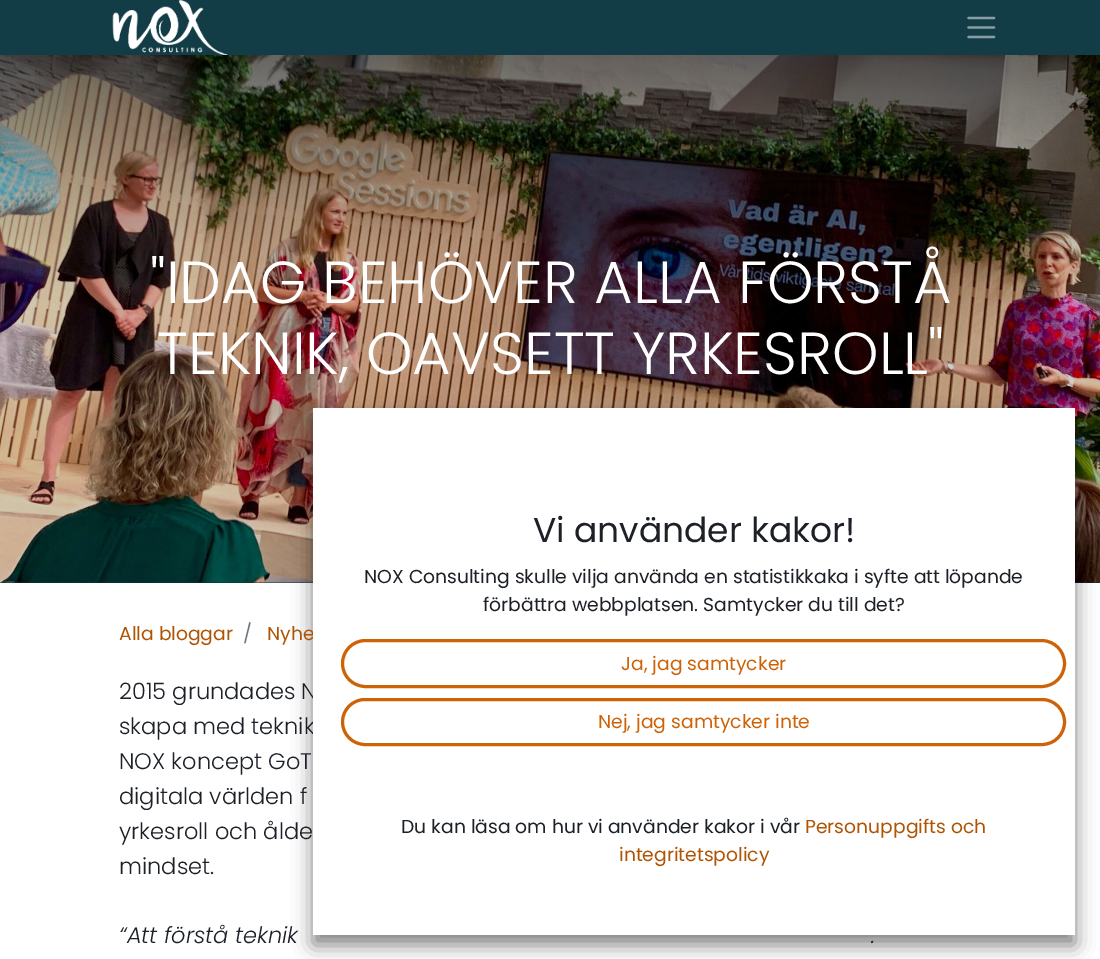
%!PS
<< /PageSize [1100 959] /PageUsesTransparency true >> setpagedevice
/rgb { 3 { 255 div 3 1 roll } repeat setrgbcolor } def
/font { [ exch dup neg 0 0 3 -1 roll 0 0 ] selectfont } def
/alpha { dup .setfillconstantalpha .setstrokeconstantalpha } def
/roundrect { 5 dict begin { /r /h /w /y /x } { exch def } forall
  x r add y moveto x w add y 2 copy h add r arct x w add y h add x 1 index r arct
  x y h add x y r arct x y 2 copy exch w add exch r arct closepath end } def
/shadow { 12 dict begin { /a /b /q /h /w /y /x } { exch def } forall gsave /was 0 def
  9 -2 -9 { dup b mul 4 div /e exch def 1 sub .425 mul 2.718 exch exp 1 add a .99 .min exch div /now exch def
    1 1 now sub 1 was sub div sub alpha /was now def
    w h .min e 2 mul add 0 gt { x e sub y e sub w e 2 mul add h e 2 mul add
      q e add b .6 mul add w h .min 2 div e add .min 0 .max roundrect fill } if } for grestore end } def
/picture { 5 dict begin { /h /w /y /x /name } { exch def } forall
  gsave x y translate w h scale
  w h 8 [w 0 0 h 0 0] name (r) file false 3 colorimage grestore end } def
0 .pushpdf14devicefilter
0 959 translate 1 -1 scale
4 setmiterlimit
255 255 255 rgb
0 0 1100 959 rectfill
18 61 71 rgb
0 0 1100 55 rectfill
(img/1.rgb) 112 0 116 55 picture
137 158 163 rgb
2.3 setlinewidth
1 setlinecap
968.5 18 moveto 994 18 lineto 968.5 27.5 moveto 994 27.5 lineto 968.5 37 moveto 994 37 lineto stroke
15 50 58 rgb
0 582 1100 1 rectfill
(img/2.rgb) 0 55 1100 528 picture
0 0 0 rgb
313 418 762 527 0 10 0.5 shadow
/Poppins-Light 59.25 font
255 255 255 rgb
150 303 moveto ("IDAG BEHÖVER ALLA FÖRSTÅ) show
157 374 moveto (TEKNIK, OAVSETT YRKESROLL") show
/Poppins-Regular 18.75 font
175 84 5 rgb
119 640 moveto (Alla bloggar) show
108 117 125 rgb
243 640 moveto (/) show
175 84 5 rgb
267 640 moveto (Nyhe) show
/Poppins-Light 22.5 font
29 33 39 rgb
[
  [(2015 grundades N) 119 699]
  [(skapa med teknik) 119 734]
  [(NOX koncept GoT) 119 769]
  [(digitala världen f) 119 804]
  [(yrkesroll och ålde) 119 839]
  [(mindset.) 119 874]
] { aload pop moveto show } forall
/Poppins-LightItalic 22.5 font
119 943 moveto (“Att förstå teknik) show
871 943 moveto (.) show
255 255 255 rgb
313 408 762 527 rectfill
/Poppins-Regular 34.5 font
29 33 39 rgb
533 542 moveto (Vi använder kakor!) show
/Poppins-Regular 18.75 font
364 583 moveto (NOX Consulting skulle vilja använda en statistikkaka i syfte att löpande) show
483 611 moveto (förbättra webbplatsen. Samtycker du till det?) show
205 98 6 rgb
3 setlinewidth
0 setlinecap
342.5 640.5 722 46 23 roundrect stroke
621 670 moveto (Ja, jag samtycker) show
342.5 699.5 722 45 22.5 roundrect stroke
598 728 moveto (Nej, jag samtycker inte) show
29 33 39 rgb
401 833 moveto (Du kan läsa om hur vi använder kakor i vår) show
175 84 5 rgb
805 833 moveto (Personuppgifts och) show
619 861 moveto (integritetspolicy) show
.poppdf14devicefilter showpage
